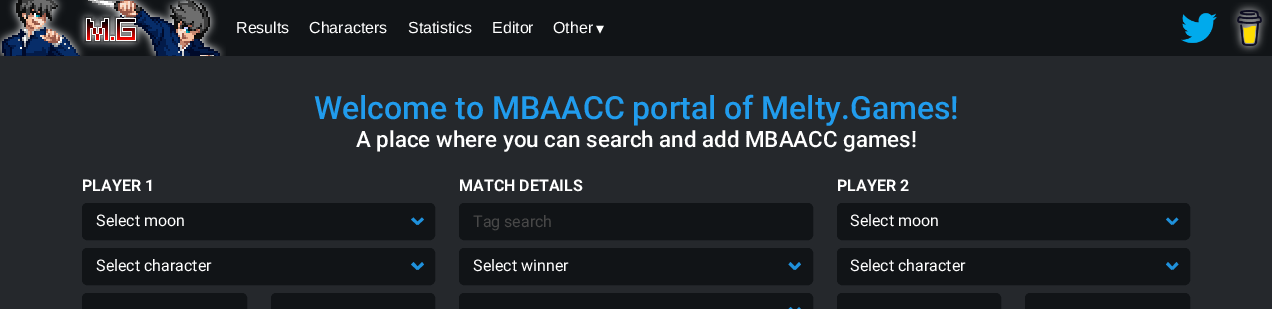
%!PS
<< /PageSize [1272 309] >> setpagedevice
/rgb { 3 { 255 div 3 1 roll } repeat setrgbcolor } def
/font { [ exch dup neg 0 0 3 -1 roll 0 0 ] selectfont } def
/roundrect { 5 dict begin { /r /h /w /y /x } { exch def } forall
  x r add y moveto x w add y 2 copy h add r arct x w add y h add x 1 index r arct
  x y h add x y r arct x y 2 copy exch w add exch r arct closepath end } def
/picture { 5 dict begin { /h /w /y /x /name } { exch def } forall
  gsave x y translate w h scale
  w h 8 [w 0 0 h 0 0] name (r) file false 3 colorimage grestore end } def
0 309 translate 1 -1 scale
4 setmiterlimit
37 40 44 rgb
0 0 1272 309 rectfill
17 20 23 rgb
0 0 1272 56 rectfill
(img/1.rgb) 0 0 226 56 picture
(img/2.rgb) 1181 13 36 30 picture
(img/3.rgb) 1230 2 39 52 picture
82.5 203.5 352 36 4.5 roundrect gsave fill grestore
stroke
31 145 220 rgb
416 223 moveto 422 217.5 lineto 424 219.5 lineto 418 225 lineto closepath fill
411 219.5 moveto 413.5 217.5 lineto 419 223 lineto 417 225 lineto closepath fill
17 20 23 rgb
82.5 248.5 352 36 4.5 roundrect gsave fill grestore
stroke
31 145 220 rgb
416 268 moveto 422 262 lineto 424 264.5 lineto 418 270 lineto closepath fill
411 264.5 moveto 413.5 262 lineto 419 268 lineto 417 270 lineto closepath fill
17 20 23 rgb
82.5 293.5 164 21 4.5 roundrect gsave fill grestore
stroke
271.5 293.5 163 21 4.5 roundrect gsave fill grestore
stroke
459.5 203.5 353 36 4.5 roundrect gsave fill grestore
stroke
459.5 248.5 353 36 4.5 roundrect gsave fill grestore
stroke
31 145 220 rgb
793.5 268 moveto 799 262 lineto 801 264.5 lineto 795.5 270 lineto closepath fill
788.5 264.5 moveto 790.5 262 lineto 796.5 268 lineto 794 270 lineto closepath fill
17 20 23 rgb
459.5 293.5 353 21 4.5 roundrect gsave fill grestore
stroke
31 145 220 rgb
793.5 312.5 moveto 799 307 lineto 801 309 lineto 795.5 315 lineto closepath 788.5 309 moveto 790.5 307 lineto 796.5 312.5 lineto 794 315 lineto closepath fill
17 20 23 rgb
837.5 203.5 352 36 4.5 roundrect gsave fill grestore
stroke
31 145 220 rgb
1171 223 moveto 1176.5 217.5 lineto 1178.5 219.5 lineto 1173 225 lineto closepath fill
1166 219.5 moveto 1168 217.5 lineto 1173.5 223 lineto 1171.5 225 lineto closepath fill
17 20 23 rgb
837.5 248.5 352 36 4.5 roundrect gsave fill grestore
stroke
31 145 220 rgb
1171 268 moveto 1176.5 262 lineto 1178.5 264.5 lineto 1173 270 lineto closepath fill
1166 264.5 moveto 1168 262 lineto 1173.5 268 lineto 1171.5 270 lineto closepath fill
17 20 23 rgb
837.5 293.5 163 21 4.5 roundrect gsave fill grestore
stroke
1025.5 293.5 164 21 4.5 roundrect gsave fill grestore
stroke
/LiberationSans-Regular 16 font
255 255 255 rgb
[
  [(Results) 236 33]
  [(Characters) 309 33]
  [(Statistics) 408 33]
  [(Editor) 492 33]
  [(Other) 553 33]
] { aload pop moveto show } forall
/DejaVuSans-Regular 16 font
596 34 moveto (▾) show
/Roboto-Medium 32 font
33 156 237 rgb
314 119 moveto (Welcome to MBAACC portal of Melty.Games!) show
/Roboto-Medium 22.4 font
255 255 255 rgb
356 147 moveto (A place where you can search and add MBAACC games!) show
/Roboto-Bold 16 font
82 191 moveto (PLAYER 1) show
/Roboto-Regular 16 font
96 226 moveto (Select moon) show
96 271 moveto (Select character) show
/Roboto-Bold 16 font
459 191 moveto (MATCH DETAILS) show
/Roboto-Regular 16 font
72 72 72 rgb
473 227 moveto (Tag search) show
255 255 255 rgb
473 271 moveto (Select winner) show
/Roboto-Bold 16 font
837 191 moveto (PLAYER 2) show
/Roboto-Regular 16 font
850 226 moveto (Select moon) show
850 271 moveto (Select character) show
showpage
